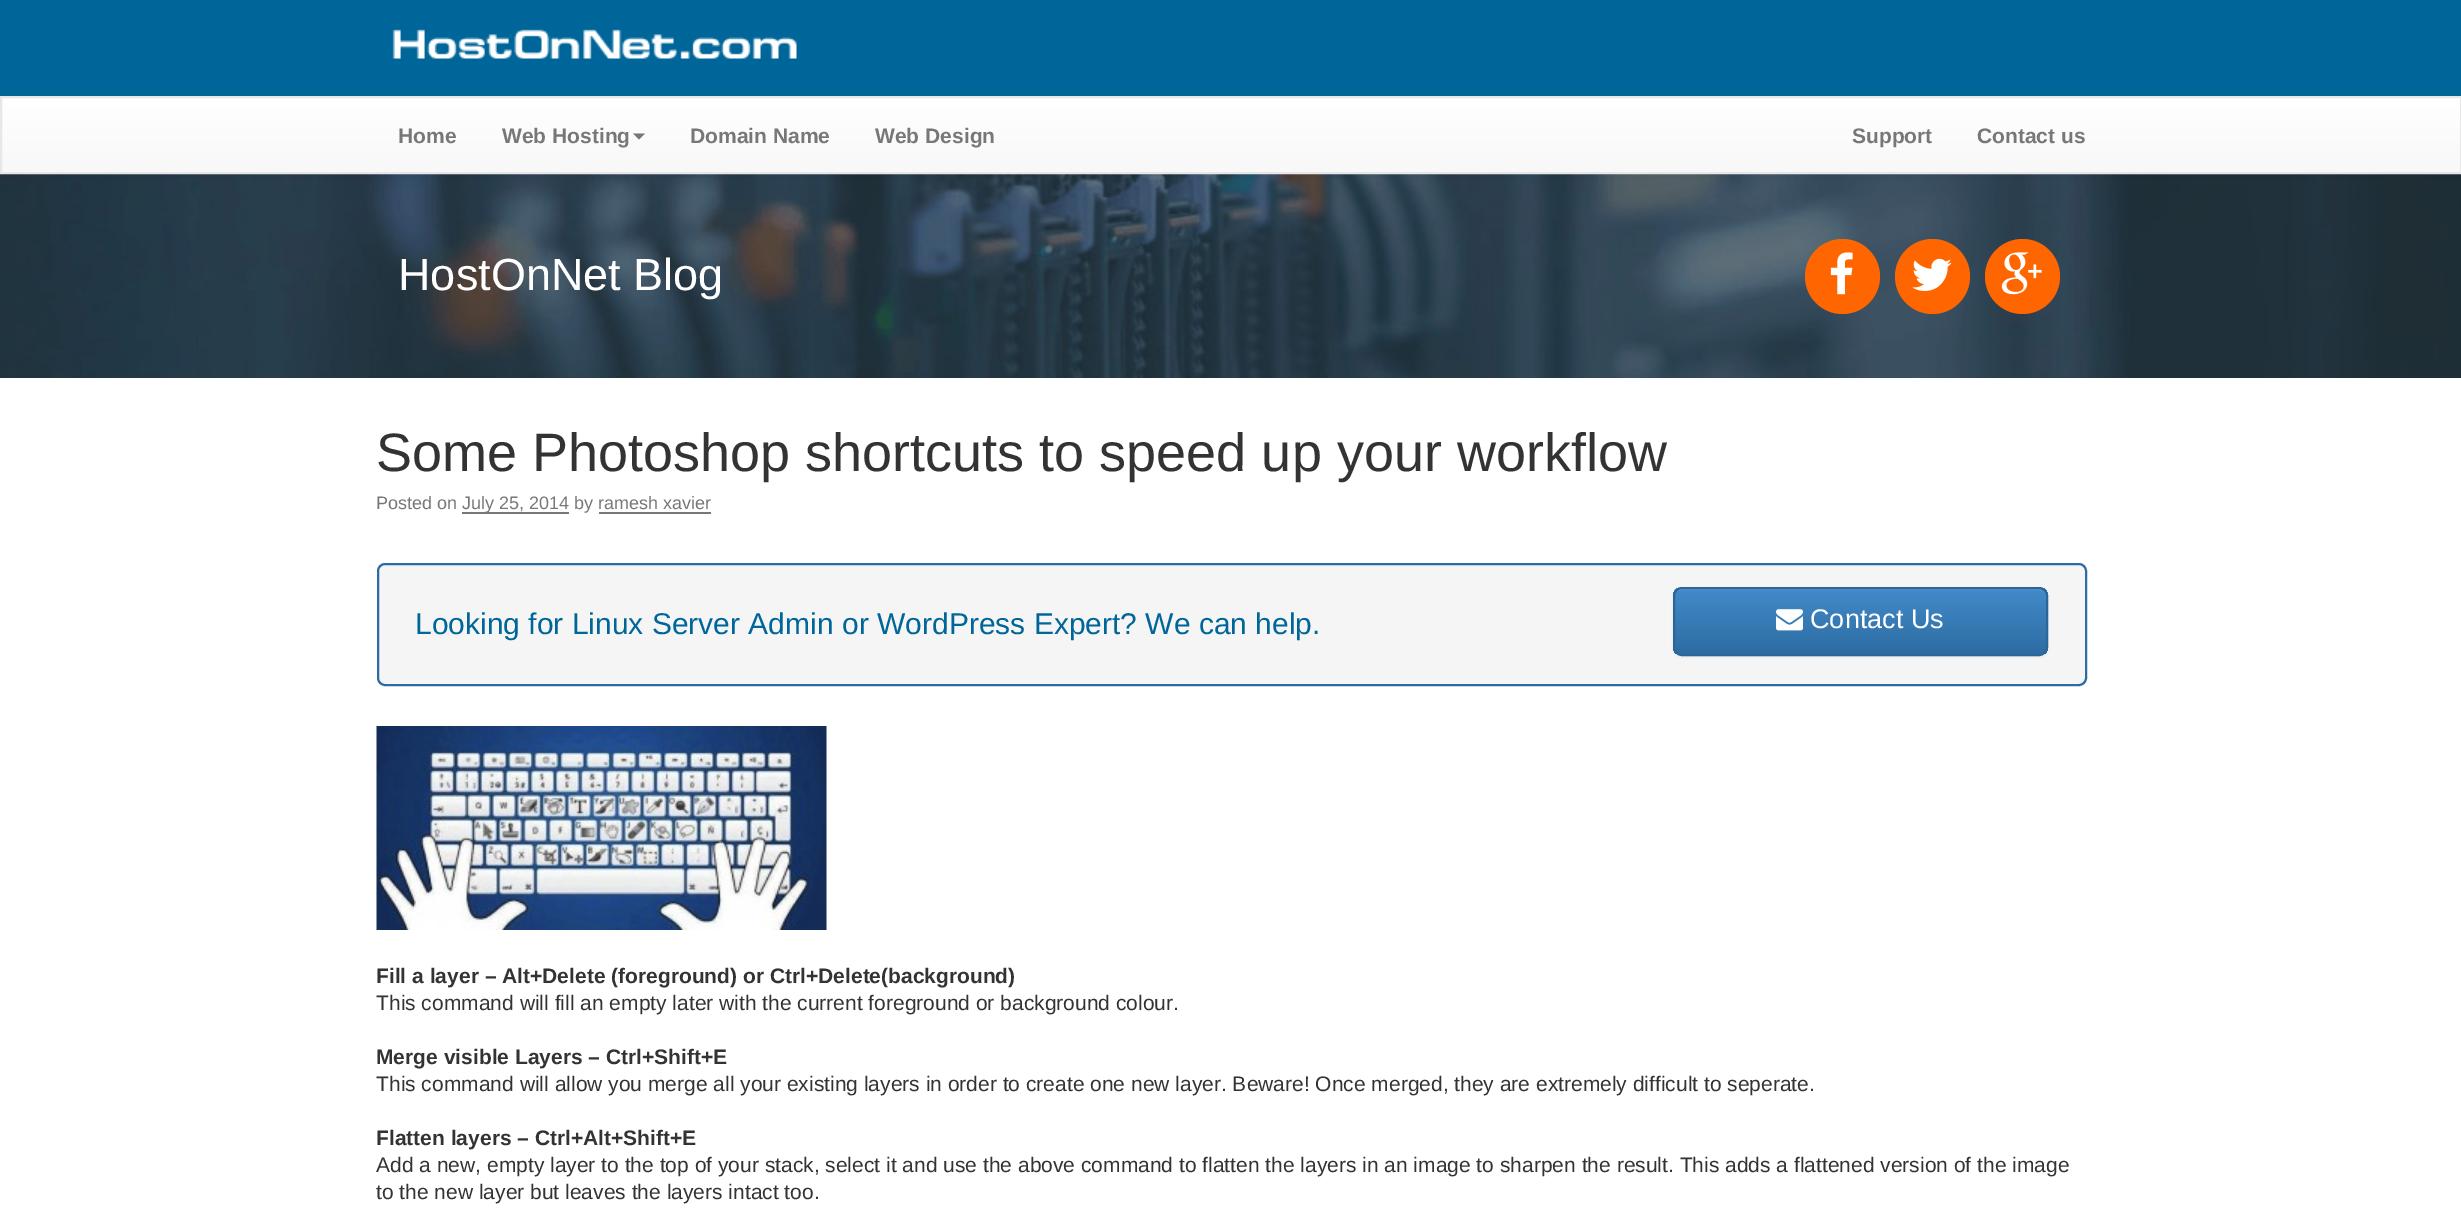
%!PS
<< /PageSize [2461 1208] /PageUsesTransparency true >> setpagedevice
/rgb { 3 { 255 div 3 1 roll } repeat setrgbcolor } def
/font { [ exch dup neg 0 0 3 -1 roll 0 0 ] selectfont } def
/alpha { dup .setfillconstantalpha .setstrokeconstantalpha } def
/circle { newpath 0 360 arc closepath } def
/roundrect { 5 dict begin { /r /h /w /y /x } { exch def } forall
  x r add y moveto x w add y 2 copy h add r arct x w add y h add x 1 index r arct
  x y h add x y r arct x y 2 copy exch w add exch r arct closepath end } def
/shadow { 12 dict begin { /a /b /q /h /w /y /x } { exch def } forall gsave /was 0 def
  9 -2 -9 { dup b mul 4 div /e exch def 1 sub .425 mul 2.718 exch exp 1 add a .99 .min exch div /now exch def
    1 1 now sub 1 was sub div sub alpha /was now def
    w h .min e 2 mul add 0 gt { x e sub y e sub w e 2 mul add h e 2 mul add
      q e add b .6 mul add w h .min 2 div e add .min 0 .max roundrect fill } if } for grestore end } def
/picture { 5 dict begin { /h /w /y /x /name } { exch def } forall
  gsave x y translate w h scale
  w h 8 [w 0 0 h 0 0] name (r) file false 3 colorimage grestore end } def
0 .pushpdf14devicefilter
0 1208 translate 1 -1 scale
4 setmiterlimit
255 255 255 rgb
0 0 2461 1208 rectfill
0 102 153 rgb
0 0 2461 96 rectfill
(img/1.rgb) 392 29 405 30 picture
(img/2.rgb) 0 174 2461 204 picture
0 0 0 rgb
0 98 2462 78 0 4 0.07 shadow
gsave 2 98 moveto 2460 98 lineto 2460 172 lineto 2 172 lineto closepath clip newpath
<< /ShadingType 2 /ColorSpace /DeviceRGB /Coords [1231 97 1231 173] /Extend [true true] /Function << /FunctionType 2 /Domain [0 1] /C0 [1 1 1] /C1 [0.973 0.973 0.973] /N 1 >> >> shfill grestore
231 231 231 rgb
2 setlinewidth
1 97 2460 76 rectstroke
119 119 119 rgb
633 133.5 moveto 645 133.5 lineto 639 139.5 lineto closepath fill
255 102 0 rgb
1842.5 276.5 37.5 circle fill
(img/3.rgb) 1830 252 23 43 picture
1932.5 276.5 37.5 circle fill
(img/4.rgb) 1912 258 40 33 picture
2022.5 276.5 37.5 circle fill
(img/5.rgb) 2001 252 41 43 picture
119 119 119 rgb
462 512 107 2 rectfill
599 512 112 2 rectfill
245 245 245 rgb
378 564 1708 121 7 roundrect gsave fill grestore
45 108 162 rgb
stroke
0 0 0 rgb
1673 588 375 69 9 1 0.07 shadow
gsave
1673 587 375 69 9 roundrect clip newpath
gsave 1673 588 moveto 2048 588 lineto 2048 654 lineto 1673 654 lineto closepath clip newpath
<< /ShadingType 2 /ColorSpace /DeviceRGB /Coords [1860 588 1860 654] /Extend [true true] /Function << /FunctionType 2 /Domain [0 1] /C0 [0.259 0.545 0.792] /C1 [0.176 0.424 0.635] /N 1 >> >> shfill grestore
grestore
0.15 alpha
255 255 255 rgb
1682 590 moveto 2038 590 lineto 2043 590 2046 593 2046 597 curveto 2046 592 2043 588 2038 588 curveto 1682 588 lineto 1677 588 1674 592 1674 597 curveto 1674 593 1677 590 1682 590 curveto closepath fill
1 alpha
43 102 154 rgb
1674 588 373 67 8 roundrect stroke
(img/6.rgb) 1776 609 27 22 picture
(img/7.rgb) 376 726 451 204 picture
/LiberationSans-Bold 21 font
119 119 119 rgb
[
  [(Home) 398 143]
  [(Web Hosting) 502 143]
  [(Domain Name) 690 143]
  [(Web Design) 875 143]
  [(Support) 1852 143]
  [(Contact us) 1977 143]
] { aload pop moveto show } forall
/LiberationSans-Regular 45 font
255 255 255 rgb
398 290 moveto (HostOnNet Blog) show
/LiberationSans-Regular 54 font
51 51 51 rgb
376 471 moveto (Some Photoshop shortcuts to speed up your workflow) show
/LiberationSans-Regular 18 font
119 119 119 rgb
376 509 moveto (Posted on) show
462 509 moveto (July 25, 2014 by ramesh xavier) show
/LiberationSans-Regular 30 font
0 102 153 rgb
415 634 moveto (Looking for Linux Server Admin or WordPress Expert? We can help.) show
/LiberationSans-Regular 27 font
255 255 255 rgb
1810 628 moveto (Contact Us) show
/LiberationSans-Bold 21 font
51 51 51 rgb
376 983 moveto (Fill a layer – Alt+Delete \(foreground\) or Ctrl+Delete\(background\)) show
/LiberationSans-Regular 21 font
376 1010 moveto (This command will fill an empty later with the current foreground or background colour.) show
/LiberationSans-Bold 21 font
376 1064 moveto (Merge visible Layers – Ctrl+Shift+E) show
/LiberationSans-Regular 21 font
376 1091 moveto (This command will allow you merge all your existing layers in order to create one new layer. Beware! Once merged, they are extremely difficult to seperate.) show
/LiberationSans-Bold 21 font
376 1145 moveto (Flatten layers – Ctrl+Alt+Shift+E) show
/LiberationSans-Regular 21 font
376 1172 moveto (Add a new, empty layer to the top of your stack, select it and use the above command to flatten the layers in an image to sharpen the result. This adds a flattened version of the image) show
376 1199 moveto (to the new layer but leaves the layers intact too.) show
.poppdf14devicefilter showpage
